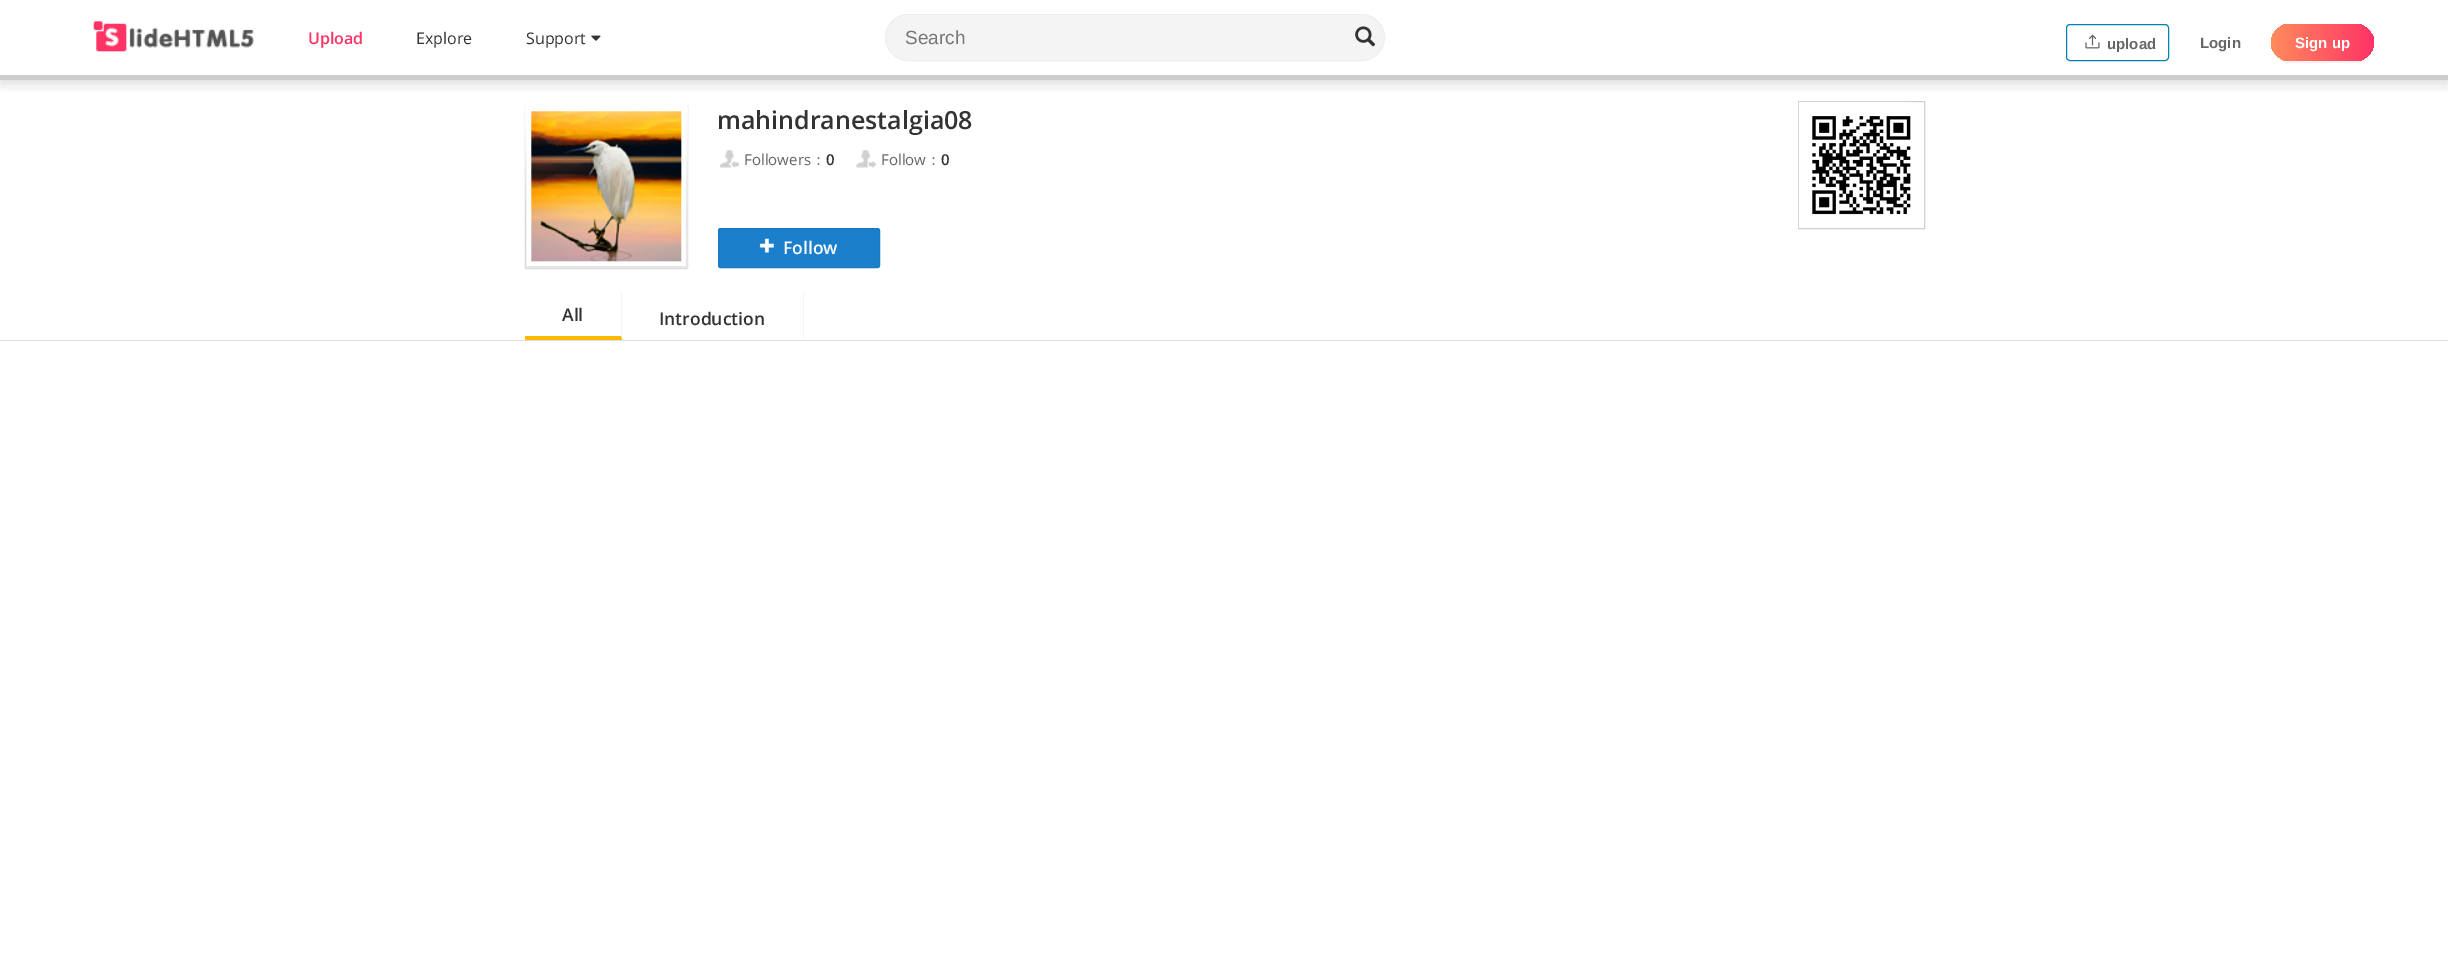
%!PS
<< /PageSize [2448 962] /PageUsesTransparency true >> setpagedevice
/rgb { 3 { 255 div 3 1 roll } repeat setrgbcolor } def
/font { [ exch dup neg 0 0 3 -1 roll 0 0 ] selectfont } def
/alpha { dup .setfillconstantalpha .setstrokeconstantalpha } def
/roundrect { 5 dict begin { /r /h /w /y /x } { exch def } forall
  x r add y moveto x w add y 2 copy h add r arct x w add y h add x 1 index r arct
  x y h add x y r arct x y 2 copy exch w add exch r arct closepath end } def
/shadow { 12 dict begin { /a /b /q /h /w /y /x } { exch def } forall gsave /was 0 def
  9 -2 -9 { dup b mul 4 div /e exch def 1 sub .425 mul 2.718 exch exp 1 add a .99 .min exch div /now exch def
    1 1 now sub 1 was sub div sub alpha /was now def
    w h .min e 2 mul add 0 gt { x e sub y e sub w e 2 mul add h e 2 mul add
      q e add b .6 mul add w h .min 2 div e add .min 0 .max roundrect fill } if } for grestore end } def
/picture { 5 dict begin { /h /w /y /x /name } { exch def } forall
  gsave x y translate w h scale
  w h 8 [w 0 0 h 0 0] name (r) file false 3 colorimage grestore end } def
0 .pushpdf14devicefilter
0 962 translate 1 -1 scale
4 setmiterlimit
255 255 255 rgb
0 0 2448 962 rectfill
0 0 0 rgb
525 106 163 163 0 0.5 0.15 shadow
245 245 245 rgb
525 105 163 163 rectfill
(img/5.rgb) 525 105 163 163 picture
208 208 208 rgb
1798.5 101.5 126 127 rectstroke
(img/9.rgb) 1798 102 113 126 picture
gsave
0 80 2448 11 rectclip
0 0 0 rgb
0 3 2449 80 0 7.5 0.15 shadow
grestore
204 204 204 rgb
0 75 2448 5 rectfill
(img/1.rgb) 93 21 161 31 picture
(img/2.rgb) 591 35 10 6 picture
244 244 244 rgb
885.5 14.5 499 46 23 roundrect gsave fill grestore
238 238 238 rgb
stroke
(img/3.rgb) 1355 26 21 21 picture
8 129 178 rgb
2066.5 24.5 102 36 3.5 roundrect stroke
(img/4.rgb) 2085 34 15 15 picture
242 242 242 rgb
2271 40 moveto 2271 44 lineto 2271 54 2280 63 2290 63 curveto 2355 63 lineto 2365 63 2374 54 2374 44 curveto 2374 40 lineto 2375 50 2368 59 2359 61 curveto 2344 61 lineto 2286 61 lineto 2277 59 2270 50 2271 40 curveto closepath fill
gsave 2271 24 103 37 18.5 roundrect clip newpath
<< /ShadingType 2 /ColorSpace /DeviceRGB /Coords [2271 43 2374 43] /Extend [true true] /Function << /FunctionType 2 /Domain [0 1] /C0 [1 0.545 0.365] /C1 [1 0.2 0.4] /N 1 >> >> shfill grestore
(img/6.rgb) 720 149 19 19 picture
(img/7.rgb) 856 149 21 19 picture
gsave
718 105 300 163 rectclip
718 266 moveto 718 268 719 269 720 269 curveto 878 269 lineto 879 269 880 268 880 266 curveto 880 265 lineto 880 266 879 268 878 268 curveto 720 268 lineto 719 268 718 267 718 266 curveto closepath fill
grestore
27 127 204 rgb
718.5 228.5 161 39 2 roundrect gsave fill grestore
26 121 194 rgb
stroke
(img/8.rgb) 759 238 15 15 picture
223 223 223 rgb
0 340 2448 1 rectfill
244 244 244 rgb
622 292 moveto 622 340 lineto 621 336 lineto 621 292 lineto closepath fill
255 185 1 rgb
622 340 moveto 525 340 lineto 525 336 lineto 621 336 lineto closepath fill
244 244 244 rgb
803 293 1 47 rectfill
/OpenSans-SemiBold 16 font
255 51 102 rgb
308 44 moveto (Upload) show
/OpenSans-Regular 16 font
51 51 51 rgb
416 44 moveto (Explore) show
526 44 moveto (Support) show
/LiberationSans-Regular 19 font
119 119 119 rgb
905 44 moveto (Search) show
/LiberationSans-Bold 15 font
102 102 102 rgb
2107 49 moveto (upload) show
2200 48 moveto (Login) show
255 255 255 rgb
2295 48 moveto (Sign up) show
/OpenSans-SemiBold 25 font
51 51 51 rgb
717 129 moveto (mahindranestalgia08) show
/OpenSans-Regular 15 font
102 102 102 rgb
744 165 moveto (Followers) show
/WenQuanYiZenHei-Medium 15 font
811 165 moveto (：) show
/OpenSans-SemiBold 15 font
51 51 51 rgb
826 165 moveto (0) show
/OpenSans-Regular 15 font
102 102 102 rgb
881 165 moveto (Follow) show
/WenQuanYiZenHei-Medium 15 font
926 165 moveto (：) show
/OpenSans-SemiBold 15 font
51 51 51 rgb
941 165 moveto (0) show
/OpenSans-SemiBold 17.5 font
255 255 255 rgb
783 254 moveto (Follow) show
51 51 51 rgb
562 321 moveto (All) show
659 325 moveto (Introduction) show
.poppdf14devicefilter showpage
